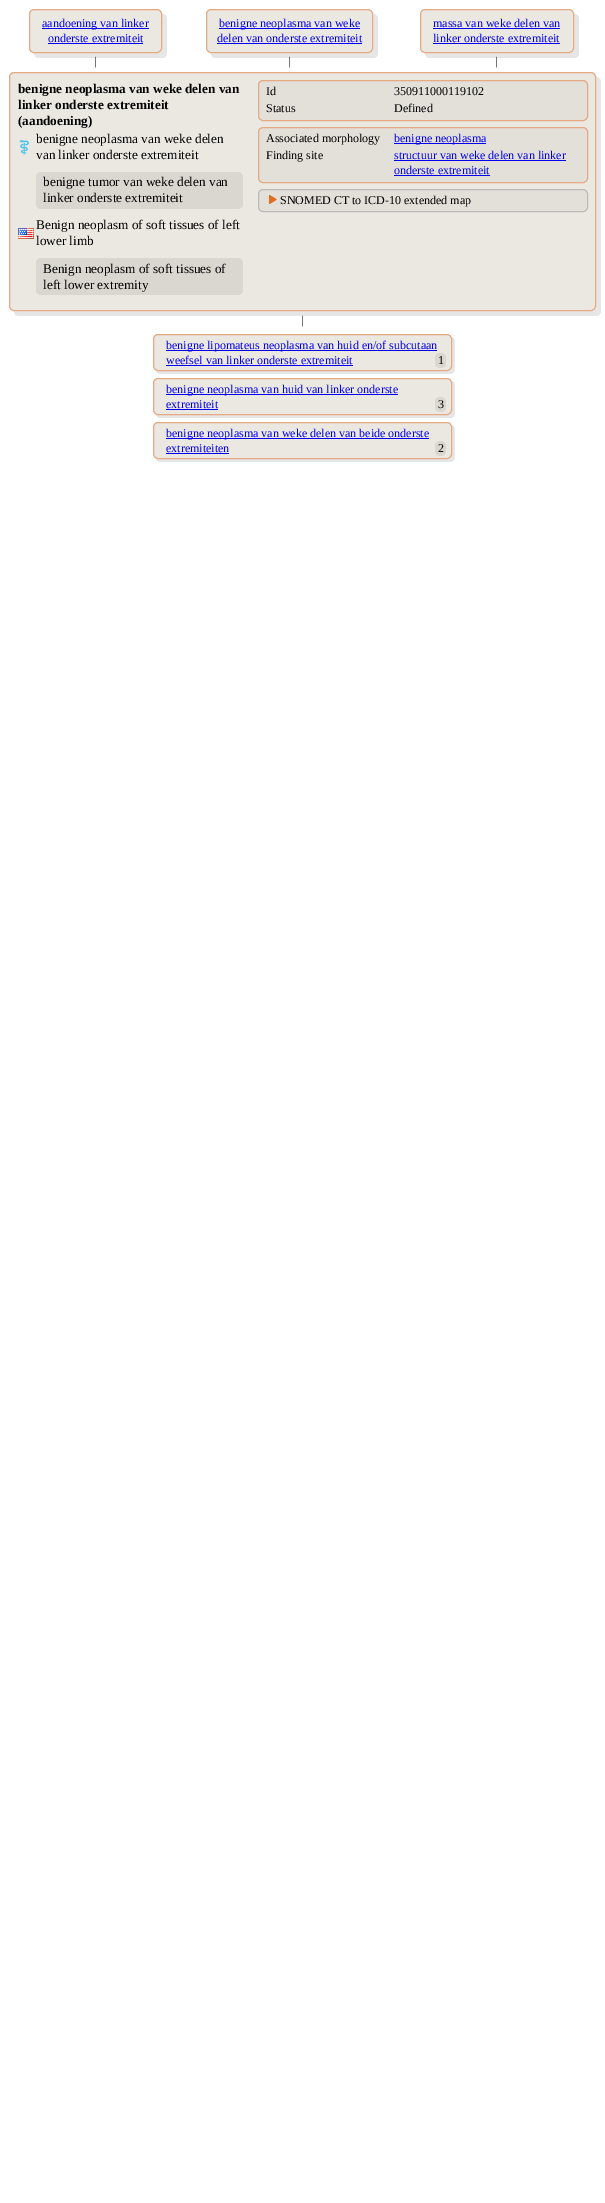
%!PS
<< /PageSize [605 2203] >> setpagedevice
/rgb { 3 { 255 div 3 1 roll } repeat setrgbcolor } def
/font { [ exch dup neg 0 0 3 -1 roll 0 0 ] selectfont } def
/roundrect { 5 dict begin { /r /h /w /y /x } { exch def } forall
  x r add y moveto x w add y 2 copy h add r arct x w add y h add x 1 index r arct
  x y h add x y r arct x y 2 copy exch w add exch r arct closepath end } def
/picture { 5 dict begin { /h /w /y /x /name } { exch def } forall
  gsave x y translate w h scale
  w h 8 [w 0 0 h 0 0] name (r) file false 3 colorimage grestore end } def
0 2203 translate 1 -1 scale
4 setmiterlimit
255 255 255 rgb
0 0 605 2203 rectfill
230 230 230 rgb
34 53 moveto 34 56 36 58 39 58 curveto 162 58 lineto 165 58 167 56 167 53 curveto 167 19 lineto 167 16 165 14 162 14 curveto 162 48 lineto 162 51 160 53 157 53 curveto closepath fill
235 231 225 rgb
29.5 9.5 132 43 4.5 roundrect gsave fill grestore
230 170 131 rgb
stroke
0 0 238 rgb
42 28 107 1 rectfill
48 43 95 1 rectfill
230 230 230 rgb
211 53 moveto 211 56 213 58 216 58 curveto 373 58 lineto 376 58 378 56 378 53 curveto 378 19 lineto 378 16 376 14 373 14 curveto 373 48 lineto 373 51 371 53 368 53 curveto closepath fill
235 231 225 rgb
206.5 9.5 166 43 4.5 roundrect gsave fill grestore
230 170 131 rgb
stroke
0 0 238 rgb
219 28 141 1 rectfill
217 43 145 1 rectfill
230 230 230 rgb
425 53 moveto 425 56 427 58 430 58 curveto 574 58 lineto 577 58 579 56 579 53 curveto 579 19 lineto 579 16 577 14 574 14 curveto 574 48 lineto 574 51 572 53 569 53 curveto closepath fill
235 231 225 rgb
420.5 9.5 153 43 4.5 roundrect gsave fill grestore
230 170 131 rgb
stroke
0 0 238 rgb
433 28 127 1 rectfill
433 43 127 1 rectfill
230 230 230 rgb
14 311 moveto 14 314 16 316 19 316 curveto 596 316 lineto 599 316 601 314 601 311 curveto 601 82 lineto 601 79 599 77 596 77 curveto 596 306 lineto 596 309 594 311 591 311 curveto closepath fill
235 231 225 rgb
9.5 72.5 586 238 4.5 roundrect gsave fill grestore
230 170 131 rgb
stroke
(img/1.rgb) 19 140 10 15 picture
218 214 208 rgb
36 172 207 37 5 roundrect fill
(img/2.rgb) 18 228 16 11 picture
36 258 207 37 5 roundrect fill
227 223 217 rgb
258.5 80.5 329 40 4.5 roundrect gsave fill grestore
230 170 131 rgb
stroke
227 223 217 rgb
258.5 127.5 329 55 4.5 roundrect gsave fill grestore
230 170 131 rgb
stroke
[
  [394 143 92 1 0 0 238]
  [394 160 172 1 0 0 238]
  [394 175 96 1 0 0 238]
] { aload pop rgb rectfill } forall
227 223 217 rgb
258.5 189.5 329 22 4.5 roundrect gsave fill grestore
187 187 187 rgb
stroke
(img/3.rgb) 269 195 8 9 picture
230 230 230 rgb
156 371 moveto 157 373 159 374 161 374 curveto 450 374 lineto 453 374 455 372 455 369 curveto 455 342 lineto 455 340 454 338 452 337 curveto 452 357 lineto 452 361 454 371 447 371 curveto closepath fill
235 231 225 rgb
153.5 334.5 298 36 4.5 roundrect gsave fill grestore
230 170 131 rgb
stroke
0 0 238 rgb
166 350 271 1 rectfill
166 365 187 1 rectfill
218 214 208 rgb
435 353 11 15 5 roundrect fill
230 230 230 rgb
156 415 moveto 157 417 159 418 161 418 curveto 450 418 lineto 453 418 455 416 455 413 curveto 455 386 lineto 455 384 454 382 452 381 curveto 452 401 lineto 452 405 454 415 447 415 curveto closepath fill
235 231 225 rgb
153.5 378.5 298 36 4.5 roundrect gsave fill grestore
230 170 131 rgb
stroke
0 0 238 rgb
166 394 232 1 rectfill
166 409 52 1 rectfill
218 214 208 rgb
435 397 11 15 5 roundrect fill
230 230 230 rgb
156 459 moveto 157 461 159 462 161 462 curveto 450 462 lineto 453 462 455 460 455 457 curveto 455 430 lineto 455 428 454 426 452 425 curveto 452 445 lineto 452 449 454 459 447 459 curveto closepath fill
235 231 225 rgb
153.5 422.5 298 36 4.5 roundrect gsave fill grestore
230 170 131 rgb
stroke
0 0 238 rgb
166 438 263 1 rectfill
166 453 63 1 rectfill
218 214 208 rgb
435 441 11 15 5 roundrect fill
/LiberationSerif-Regular 12 font
0 0 238 rgb
[
  [(aandoening van linker) 42 27]
  [(onderste extremiteit) 48 42]
  [(benigne neoplasma van weke) 219 27]
  [(delen van onderste extremiteit) 217 42]
  [(massa van weke delen van) 433 27]
  [(linker onderste extremiteit) 433 42]
] { aload pop moveto show } forall
0 0 0 rgb
[
  [(|) 94 65]
  [(|) 288 65]
  [(|) 495 65]
] { aload pop moveto show } forall
/LiberationSerif-Bold 13.25 font
[
  [(benigne neoplasma van weke delen van) 18 93]
  [(linker onderste extremiteit) 18 109]
  [(\(aandoening\)) 18 125]
] { aload pop moveto show } forall
/LiberationSerif-Regular 13.25 font
[
  [(benigne neoplasma van weke delen) 36 143]
  [(van linker onderste extremiteit) 36 159]
  [(benigne tumor van weke delen van) 43 186]
  [(linker onderste extremiteit) 43 202]
  [(Benign neoplasm of soft tissues of left) 36 229]
  [(lower limb) 36 245]
  [(Benign neoplasm of soft tissues of) 43 273]
  [(left lower extremity) 43 289]
] { aload pop moveto show } forall
/LiberationSerif-Regular 12 font
[
  [(Id) 266 95]
  [(350911000119102) 394 95]
  [(Status) 266 112]
  [(Defined) 394 112]
  [(Associated morphology) 266 142]
] { aload pop moveto show } forall
0 0 238 rgb
394 142 moveto (benigne neoplasma) show
0 0 0 rgb
266 159 moveto (Finding site) show
0 0 238 rgb
394 159 moveto (structuur van weke delen van linker) show
394 174 moveto (onderste extremiteit) show
0 0 0 rgb
280 204 moveto (SNOMED CT to ICD-10 extended map) show
301 324 moveto (|) show
0 0 238 rgb
166 349 moveto (benigne lipomateus neoplasma van huid en/of subcutaan) show
166 364 moveto (weefsel van linker onderste extremiteit) show
0 0 0 rgb
438 364 moveto (1) show
0 0 238 rgb
166 393 moveto (benigne neoplasma van huid van linker onderste) show
166 408 moveto (extremiteit) show
0 0 0 rgb
438 408 moveto (3) show
0 0 238 rgb
166 437 moveto (benigne neoplasma van weke delen van beide onderste) show
166 452 moveto (extremiteiten) show
0 0 0 rgb
438 452 moveto (2) show
showpage
